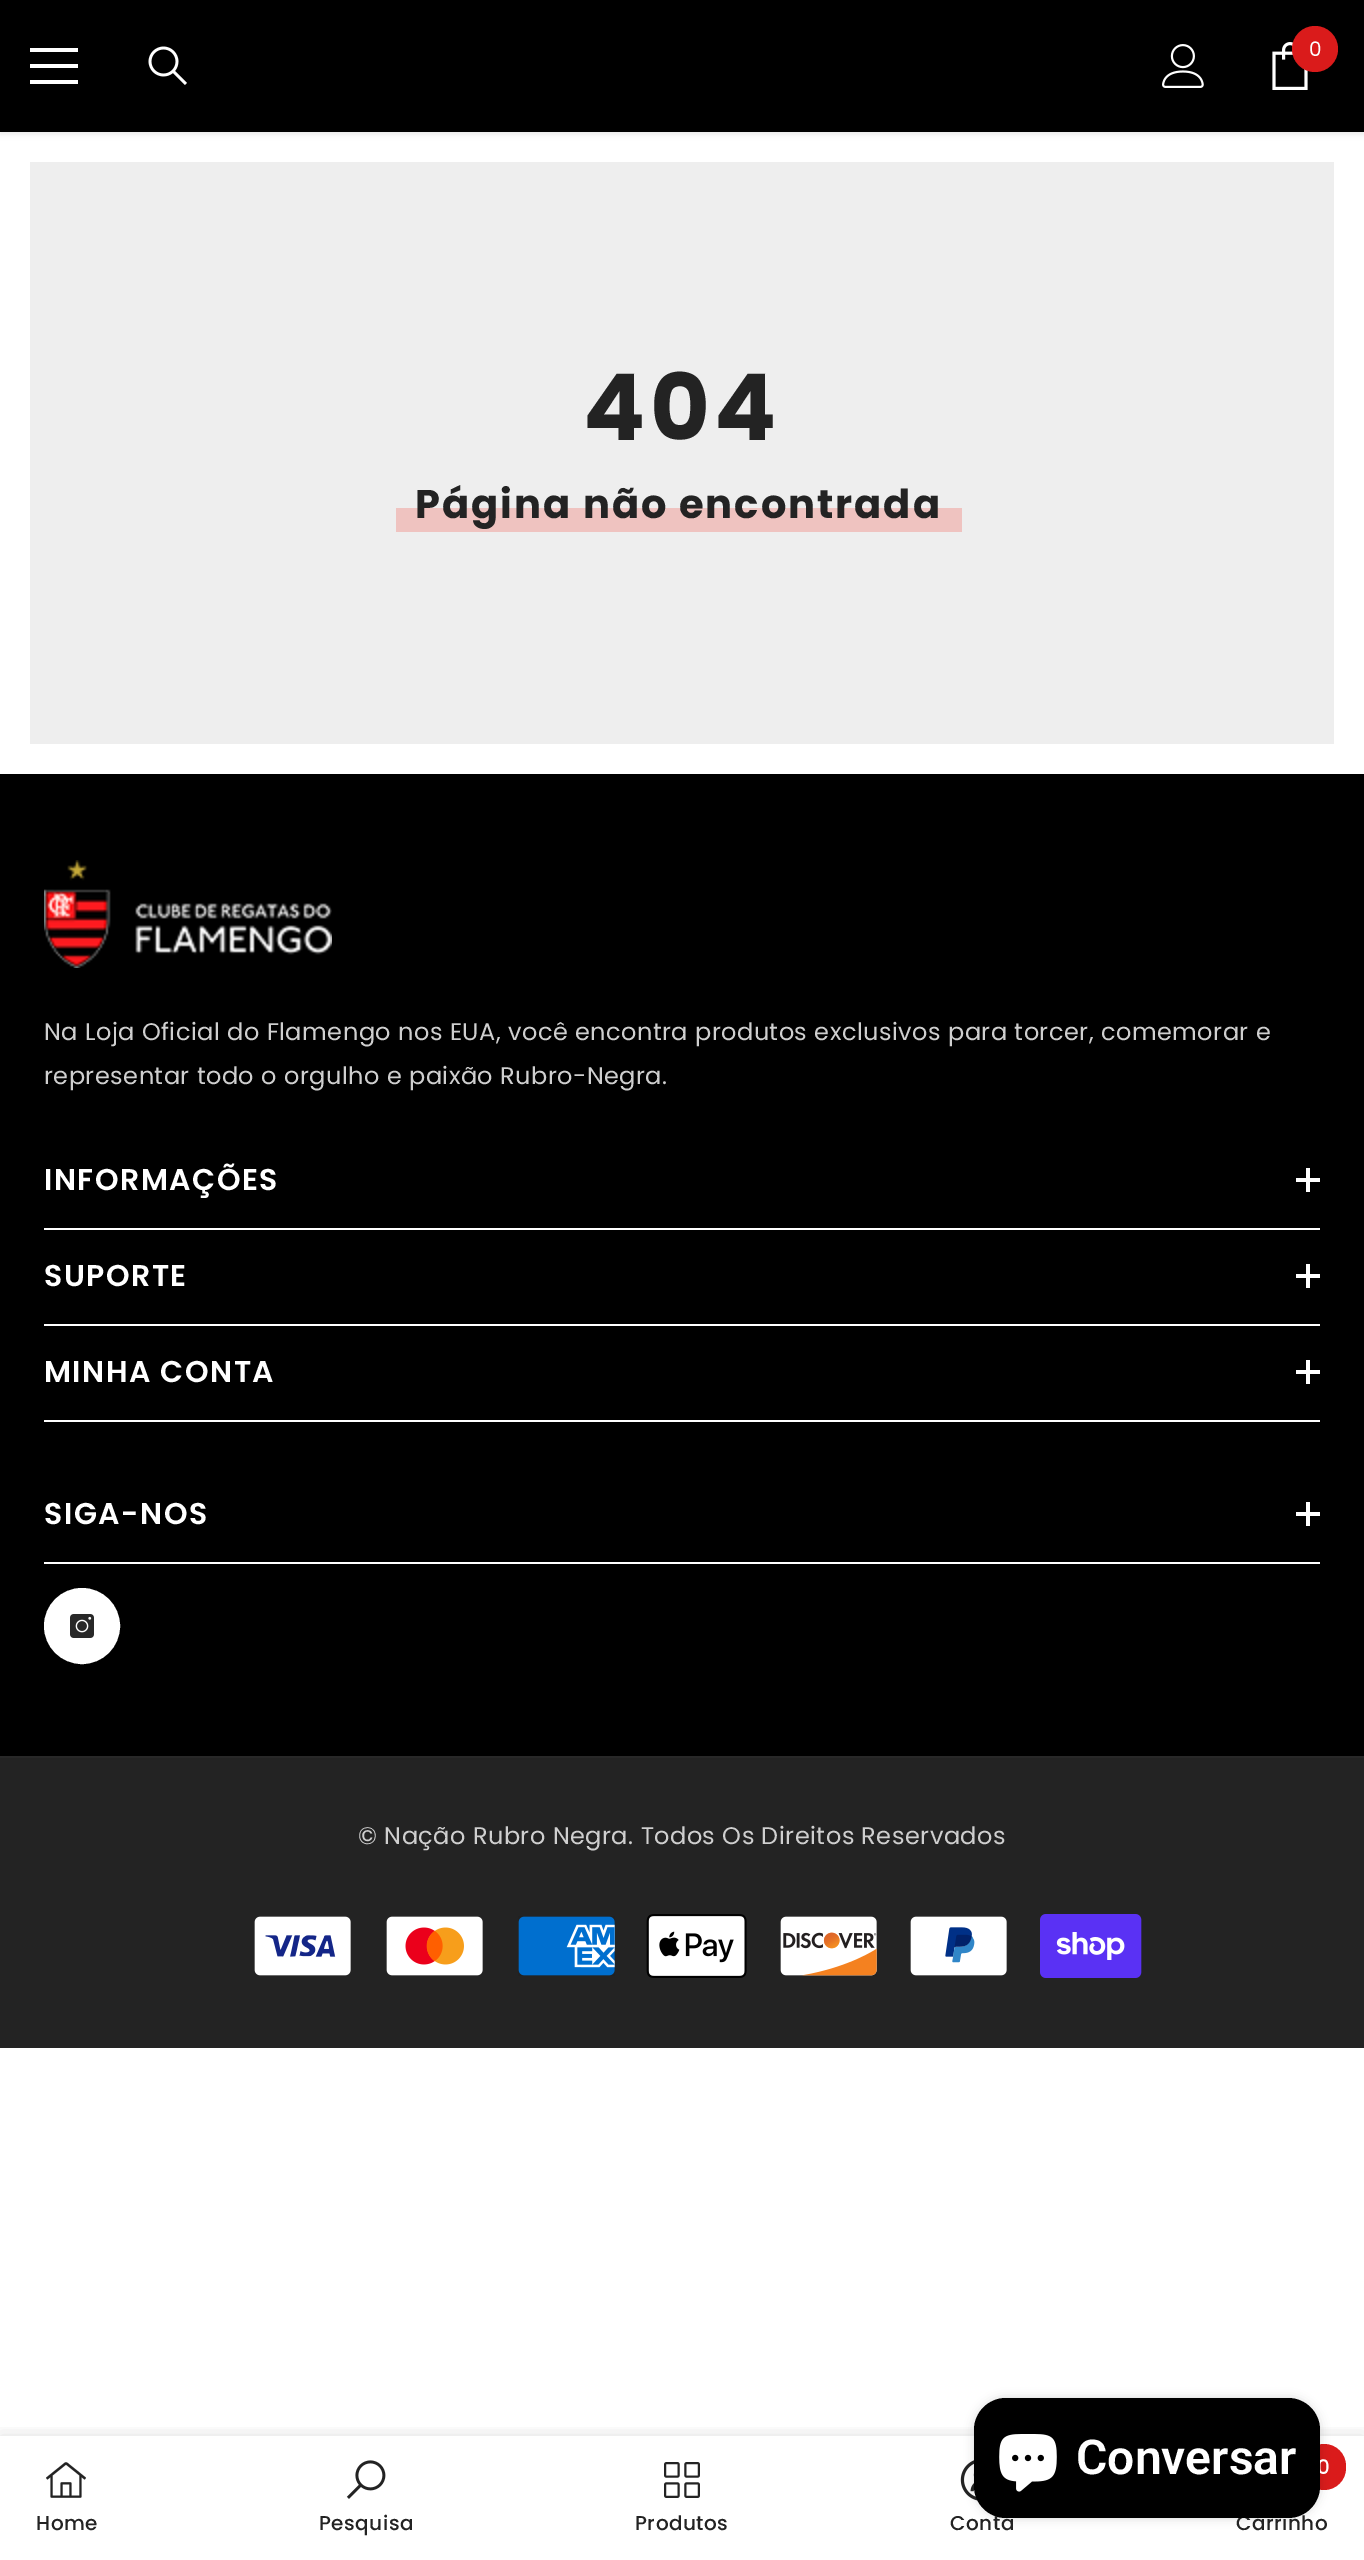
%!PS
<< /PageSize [1364 2560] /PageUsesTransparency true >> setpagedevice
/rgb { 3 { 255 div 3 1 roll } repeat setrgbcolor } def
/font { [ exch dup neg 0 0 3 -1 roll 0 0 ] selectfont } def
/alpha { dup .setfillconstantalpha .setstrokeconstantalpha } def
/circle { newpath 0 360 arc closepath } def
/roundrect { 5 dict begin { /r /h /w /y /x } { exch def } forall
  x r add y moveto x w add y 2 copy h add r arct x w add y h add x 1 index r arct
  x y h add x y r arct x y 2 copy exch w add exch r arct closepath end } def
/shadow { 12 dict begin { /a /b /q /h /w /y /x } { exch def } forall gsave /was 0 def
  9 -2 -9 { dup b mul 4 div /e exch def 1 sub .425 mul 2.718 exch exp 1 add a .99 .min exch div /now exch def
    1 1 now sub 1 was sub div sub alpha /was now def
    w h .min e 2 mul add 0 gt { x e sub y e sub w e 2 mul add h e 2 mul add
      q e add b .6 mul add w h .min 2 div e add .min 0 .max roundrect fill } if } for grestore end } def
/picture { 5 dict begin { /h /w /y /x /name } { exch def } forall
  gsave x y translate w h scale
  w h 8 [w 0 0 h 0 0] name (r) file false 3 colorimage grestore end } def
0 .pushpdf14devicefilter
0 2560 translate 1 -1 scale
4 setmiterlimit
255 255 255 rgb
0 0 1364 2560 rectfill
0 0 0 rgb
0 2 1364 132 0 3 0.1 shadow
[
  [0 0 1364 132 0 0 0]
  [30 64 48 4 255 255 255]
  [30 48 48 4 255 255 255]
  [30 80 48 4 255 255 255]
] { aload pop rgb rectfill } forall
(img/1.rgb) 148 46 39 39 picture
(img/2.rgb) 1162 44 42 44 picture
(img/3.rgb) 1272 42 36 48 picture
218 27 27 rgb
1315 49 23 circle fill
[
  [30 162 1304 582 238 238 238]
  [396 508 566 24 239 195 192]
  [0 774 1364 982 0 0 0]
] { aload pop rgb rectfill } forall
(img/4.rgb) 44 860 288 108 picture
[
  [44 1228 1276 2 255 255 255]
  [1306 1168 4 24 255 255 255]
  [1296 1178 24 4 255 255 255]
  [44 1324 1276 2 255 255 255]
  [1306 1264 4 24 255 255 255]
  [1296 1274 24 4 255 255 255]
  [44 1420 1276 2 255 255 255]
  [1306 1360 4 24 255 255 255]
  [1296 1370 24 4 255 255 255]
  [44 1562 1276 2 255 255 255]
  [1306 1502 4 24 255 255 255]
  [1296 1512 24 4 255 255 255]
] { aload pop rgb rectfill } forall
82 1626 37 circle gsave fill grestore
2 setlinewidth
stroke
(img/5.rgb) 70 1614 24 24 picture
35 35 35 rgb
0 1758 1364 290 rectfill
40 40 40 rgb
0 1756 1364 2 rectfill
(img/6.rgb) 254 1916 97 60 picture
(img/7.rgb) 386 1916 97 60 picture
(img/8.rgb) 518 1916 97 60 picture
(img/9.rgb) 646 1914 101 64 picture
(img/10.rgb) 780 1916 97 60 picture
(img/11.rgb) 910 1916 97 60 picture
(img/12.rgb) 1040 1914 102 64 picture
gsave
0 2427 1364 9 rectclip
0 0 0 rgb
0 2436 1364 124 0 9 0.12 shadow
grestore
(img/13.rgb) 46 2462 40 36 picture
(img/14.rgb) 346 2460 40 39 picture
(img/15.rgb) 664 2462 36 36 picture
(img/16.rgb) 960 2460 18 41 picture
218 27 27 rgb
1302 2444 44 46 22 roundrect fill
0 0 0 rgb
974 2398 346 120 32 5 0.15 shadow
/Poppins-Regular 20 font
255 255 255 rgb
1309 56 moveto (0) show
/Poppins-Bold 92 font
35 35 35 rgb
583 440 moveto 4.5 0 (404) ashow
/Poppins-Bold 40 font
415 518 moveto 2 0 (Página não encontrada) ashow
/Poppins-Regular 24 font
207 207 207 rgb
44 1040 moveto 0.48 0 (Na Loja Oficial do Flamengo nos EUA, você encontra produtos exclusivos para torcer, comemorar e) ashow
44 1084 moveto 0.48 0 (representar todo o orgulho e paixão Rubro-Negra.) ashow
/Poppins-SemiBold 30 font
255 255 255 rgb
44 1190 moveto 1.5 0 (INFORMAÇÕES) ashow
44 1286 moveto 1.5 0 (SUPORTE) ashow
44 1382 moveto 1.5 0 (MINHA CONTA) ashow
44 1524 moveto 1.5 0 (SIGA-NOS) ashow
/Poppins-Regular 24 font
207 207 207 rgb
358 1844 moveto 0.48 0 (© Nação Rubro Negra. Todos Os Direitos Reservados) ashow
/Poppins-Medium 20 font
35 35 35 rgb
36 2530 moveto 0.48 0 (Home) ashow
319 2530 moveto 0.48 0 (Pesquisa) ashow
635 2530 moveto 0.48 0 (Produtos) ashow
950 2530 moveto 0.48 0 (Conta) ashow
255 255 255 rgb
1317 2474 moveto (0) show
35 35 35 rgb
1236 2530 moveto 0.48 0 (Carrinho) ashow
0 0 0 rgb
974 2398 346 120 32 roundrect fill
(img/17.rgb) 999 2434 58 58 picture
/Roboto-SemiBold 48 font
255 255 255 rgb
1076 2474 moveto (Conversar) show
.poppdf14devicefilter showpage
